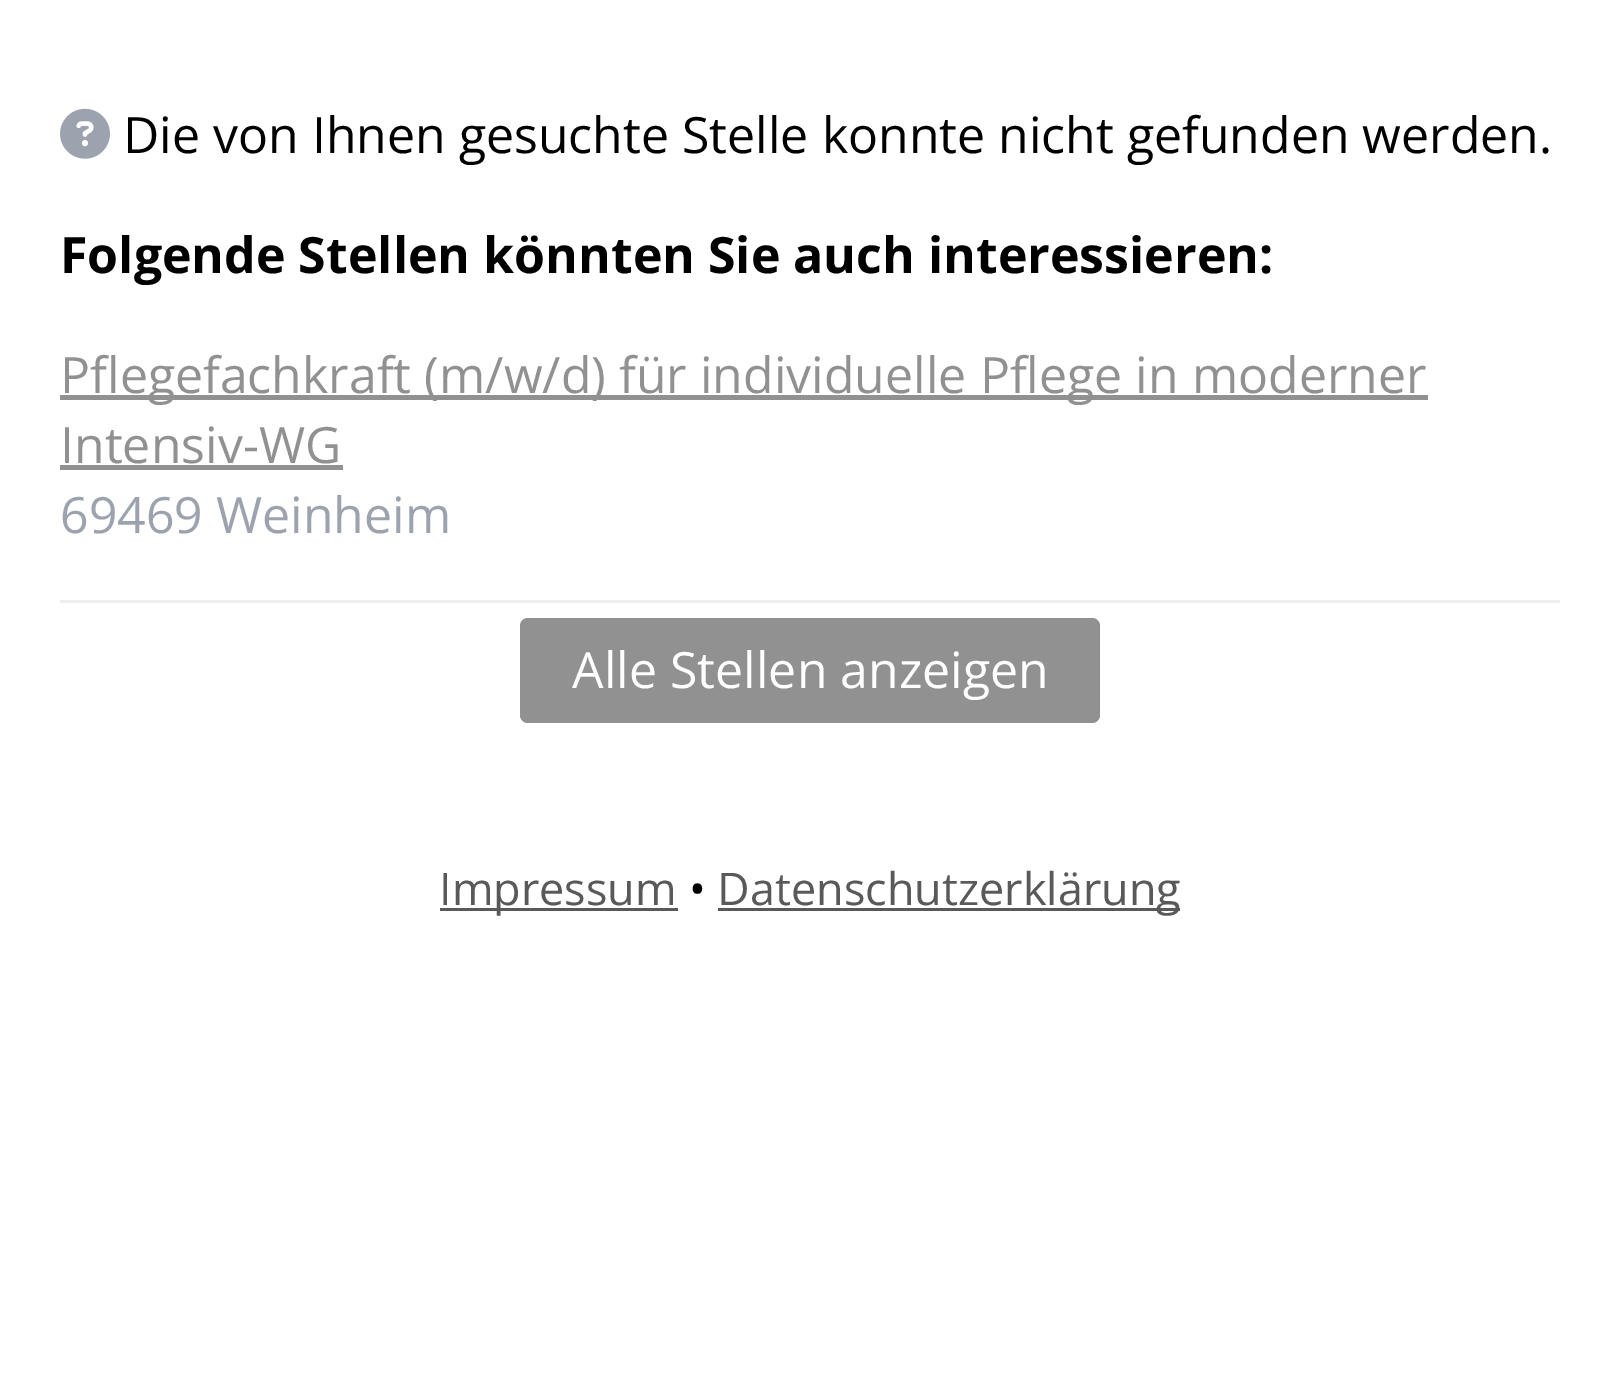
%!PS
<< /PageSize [1619 1400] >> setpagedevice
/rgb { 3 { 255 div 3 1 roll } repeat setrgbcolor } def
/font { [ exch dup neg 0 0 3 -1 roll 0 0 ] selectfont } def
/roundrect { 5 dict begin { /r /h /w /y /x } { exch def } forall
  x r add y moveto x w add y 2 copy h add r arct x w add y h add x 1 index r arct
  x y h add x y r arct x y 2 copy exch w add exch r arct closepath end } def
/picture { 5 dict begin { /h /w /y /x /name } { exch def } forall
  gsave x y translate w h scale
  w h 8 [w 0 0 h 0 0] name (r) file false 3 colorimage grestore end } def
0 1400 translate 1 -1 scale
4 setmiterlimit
255 255 255 rgb
0 0 1619 1400 rectfill
(img/1.rgb) 60 108 50 51 picture
[
  [60 600 1500 3 238 238 238]
  [60 395 1368 5 145 145 145]
  [60 465 283 5 145 145 145]
] { aload pop rgb rectfill } forall
520 618 580 105 8 roundrect fill
89 89 89 rgb
440 908 238 3 rectfill
718 908 462 3 rectfill
/OpenSans-Regular 50 font
0 0 0 rgb
123 153 moveto (Die von Ihnen gesuchte Stelle konnte nicht gefunden werden.) show
/OpenSans-Bold 50 font
60 273 moveto (Folgende Stellen könnten Sie auch interessieren:) show
/OpenSans-Regular 50 font
145 145 145 rgb
60 393 moveto (Pflegefachkraft \(m/w/d\) für individuelle Pflege in moderner) show
60 463 moveto (Intensiv-WG) show
156 163 175 rgb
60 533 moveto (69469 Weinheim) show
255 255 255 rgb
572 688 moveto (Alle Stellen anzeigen) show
/OpenSans-Regular 45 font
89 89 89 rgb
439 905 moveto (Impressum) show
0 0 0 rgb
689 905 moveto (•) show
89 89 89 rgb
717 905 moveto (Datenschutzerklärung) show
showpage
